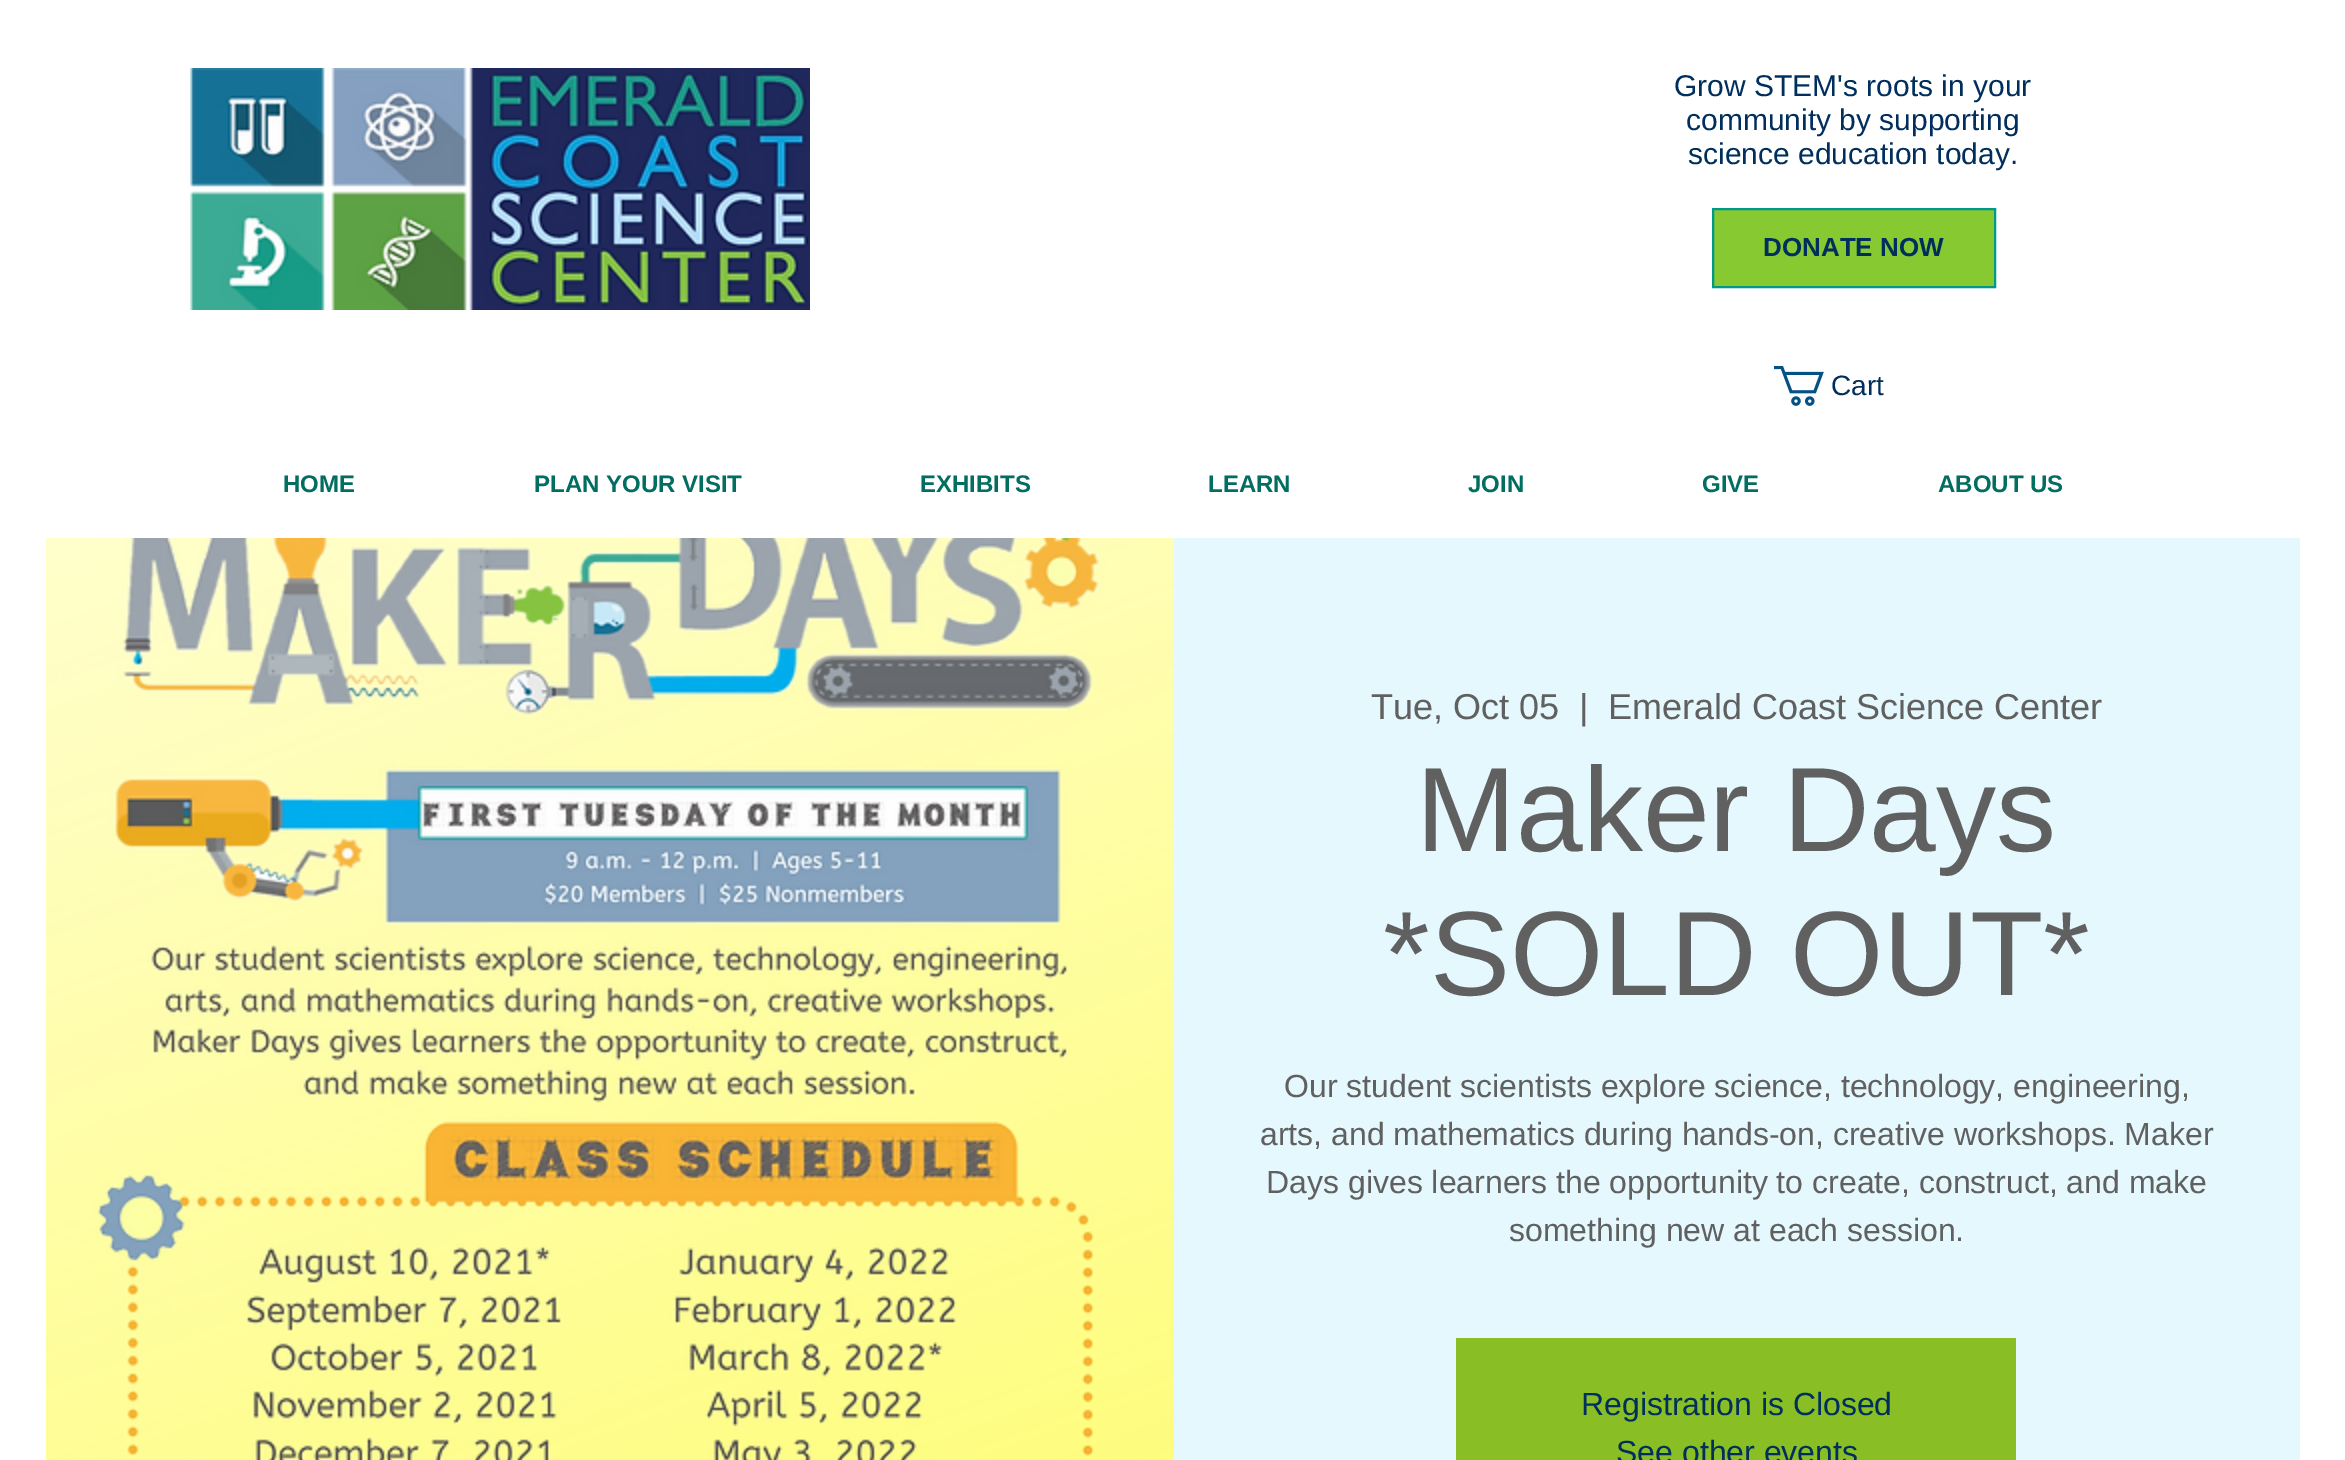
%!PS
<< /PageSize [2345 1460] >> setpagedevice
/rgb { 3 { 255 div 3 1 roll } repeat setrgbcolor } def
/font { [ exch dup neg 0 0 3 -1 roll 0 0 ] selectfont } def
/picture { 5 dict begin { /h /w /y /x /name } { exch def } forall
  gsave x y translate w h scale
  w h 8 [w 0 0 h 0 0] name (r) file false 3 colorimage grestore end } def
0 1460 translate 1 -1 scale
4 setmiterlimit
255 255 255 rgb
0 0 2345 1460 rectfill
(img/1.rgb) 190 68 620 242 picture
135 201 48 rgb
1713 209 moveto 1995 209 lineto 1995 287 lineto 1713 287 lineto closepath gsave fill grestore
0 153 135 rgb
2 setlinewidth
stroke
(img/2.rgb) 1774 366 50 40 picture
(img/3.rgb) 46 538 1128 922 picture
229 248 253 rgb
1174 538 1126 922 rectfill
137 191 36 rgb
1456 1338 560 122 rectfill
/LiberationSans-Regular 30 font
0 46 93 rgb
[
  [(Grow STEM's roots in your) 1674 96]
  [(community by supporting) 1686 130]
  [(science education today.) 1688 164]
] { aload pop moveto show } forall
/LiberationSans-Bold 26 font
1763 256 moveto (DONATE NOW) show
/LiberationSans-Regular 28 font
1831 395 moveto (Cart) show
/LiberationSans-Bold 24 font
1 110 97 rgb
[
  [(HOME) 283 492]
  [(PLAN YOUR VISIT) 534 492]
  [(EXHIBITS) 920 492]
  [(LEARN) 1208 492]
  [(JOIN) 1468 492]
  [(GIVE) 1702 492]
  [(ABOUT US) 1938 492]
] { aload pop moveto show } forall
/LiberationSans-Regular 36 font
96 96 96 rgb
[
  [(Tue, Oct 05) 1371 719]
  [(|) 1579 719]
  [(Emerald Coast Science Center) 1608 719]
] { aload pop moveto show } forall
/LiberationSans-Regular 120 font
1416 851 moveto (Maker Days) show
1383 995 moveto (*SOLD OUT*) show
/LiberationSans-Regular 32 font
[
  [(Our student scientists explore science, technology, engineering,) 1284 1097]
  [(arts, and mathematics during hands-on, creative workshops. Maker) 1260 1145]
  [(Days gives learners the opportunity to create, construct, and make) 1266 1193]
  [(something new at each session.) 1509 1241]
] { aload pop moveto show } forall
0 46 93 rgb
1581 1415 moveto (Registration is Closed) show
1616 1463 moveto (See other events) show
showpage
